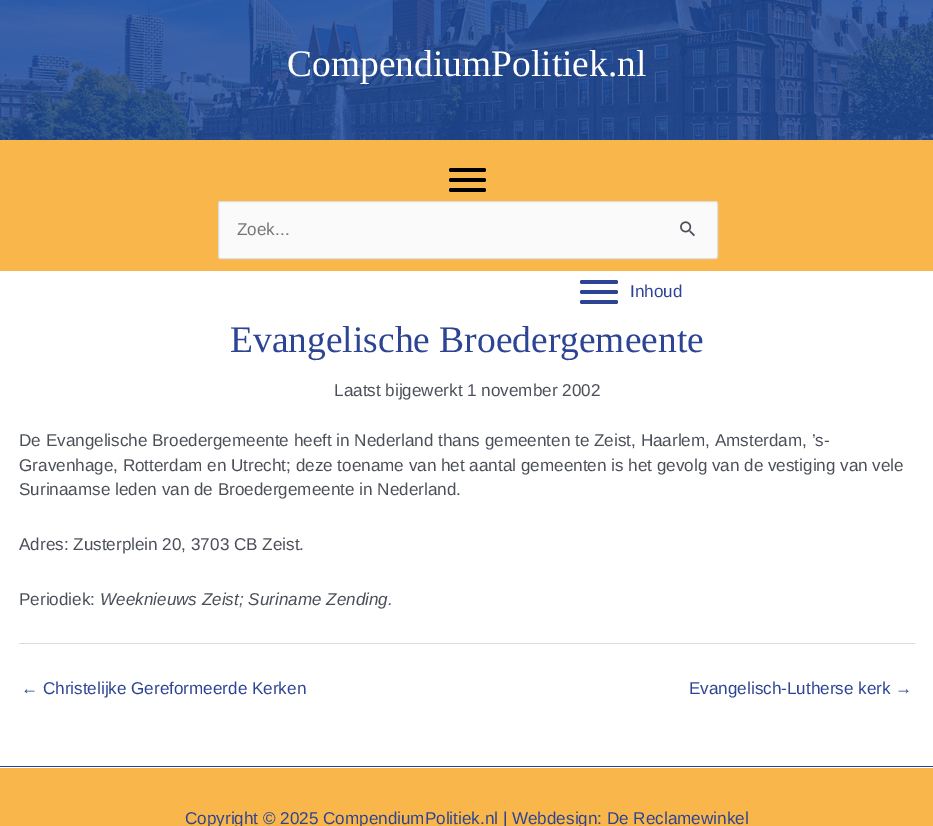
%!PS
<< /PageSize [933 826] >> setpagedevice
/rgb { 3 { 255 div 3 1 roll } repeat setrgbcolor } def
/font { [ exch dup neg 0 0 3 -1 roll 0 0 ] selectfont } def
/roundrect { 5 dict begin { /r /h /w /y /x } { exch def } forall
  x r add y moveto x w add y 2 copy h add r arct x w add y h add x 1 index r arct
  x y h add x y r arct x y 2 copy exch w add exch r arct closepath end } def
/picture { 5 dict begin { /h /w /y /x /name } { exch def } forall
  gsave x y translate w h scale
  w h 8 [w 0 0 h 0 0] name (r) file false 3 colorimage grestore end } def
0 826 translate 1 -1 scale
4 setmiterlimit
255 255 255 rgb
0 0 933 826 rectfill
(img/1.rgb) 0 0 933 140 picture
249 182 75 rgb
0 140 933 131 rectfill
0 0 0 rgb
449 178 37 4 2 roundrect fill
449 168 37 4 2 roundrect fill
449 188 37 4 2 roundrect fill
250 250 250 rgb
218.5 201.5 499 57 2 roundrect gsave fill grestore
221 221 221 rgb
stroke
(img/2.rgb) 680 221 15 16 picture
44 68 147 rgb
580 290 38 4 2 roundrect fill
580 280 38 4 2 roundrect fill
580 300 38 4 2 roundrect fill
[
  [19 643 896 1 221 221 221]
  [0 766 933 1 44 68 147]
  [0 768 933 58 249 182 75]
] { aload pop rgb rectfill } forall
/LiberationSerif-Regular 37.5 font
255 255 255 rgb
287 76 moveto (CompendiumPolitiek.nl) show
/LiberationSans-Regular 17.1 font
117 117 117 rgb
237 235 moveto (Zoek...) show
44 68 147 rgb
630 297 moveto (Inhoud) show
/LiberationSerif-Regular 37.5 font
230 352 moveto (Evangelische Broedergemeente) show
/LiberationSans-Regular 17.1 font
75 79 88 rgb
[
  [(Laatst bijgewerkt 1 november 2002) 334 396]
  [(De Evangelische Broedergemeente heeft in Nederland thans gemeenten te Zeist, Haarlem, Amsterdam, ’s-) 19 446]
  [(Gravenhage, Rotterdam en Utrecht; deze toename van het aantal gemeenten is het gevolg van de vestiging van vele) 19 471]
  [(Surinaamse leden van de Broedergemeente in Nederland.) 19 495]
  [(Adres: Zusterplein 20, 3703 CB Zeist.) 19 550]
  [(Periodiek:) 19 605]
] { aload pop moveto show } forall
/LiberationSans-Italic 17.1 font
100 605 moveto (Weeknieuws Zeist; Suriname Zending.) show
/LiberationSans-Regular 17.1 font
44 68 147 rgb
[
  [(← Christelijke Gereformeerde Kerken) 21 694]
  [(Evangelisch-Lutherse kerk →) 689 694]
  [(Copyright © 2025 CompendiumPolitiek.nl | Webdesign: De Reclamewinkel) 185 824]
] { aload pop moveto show } forall
showpage
